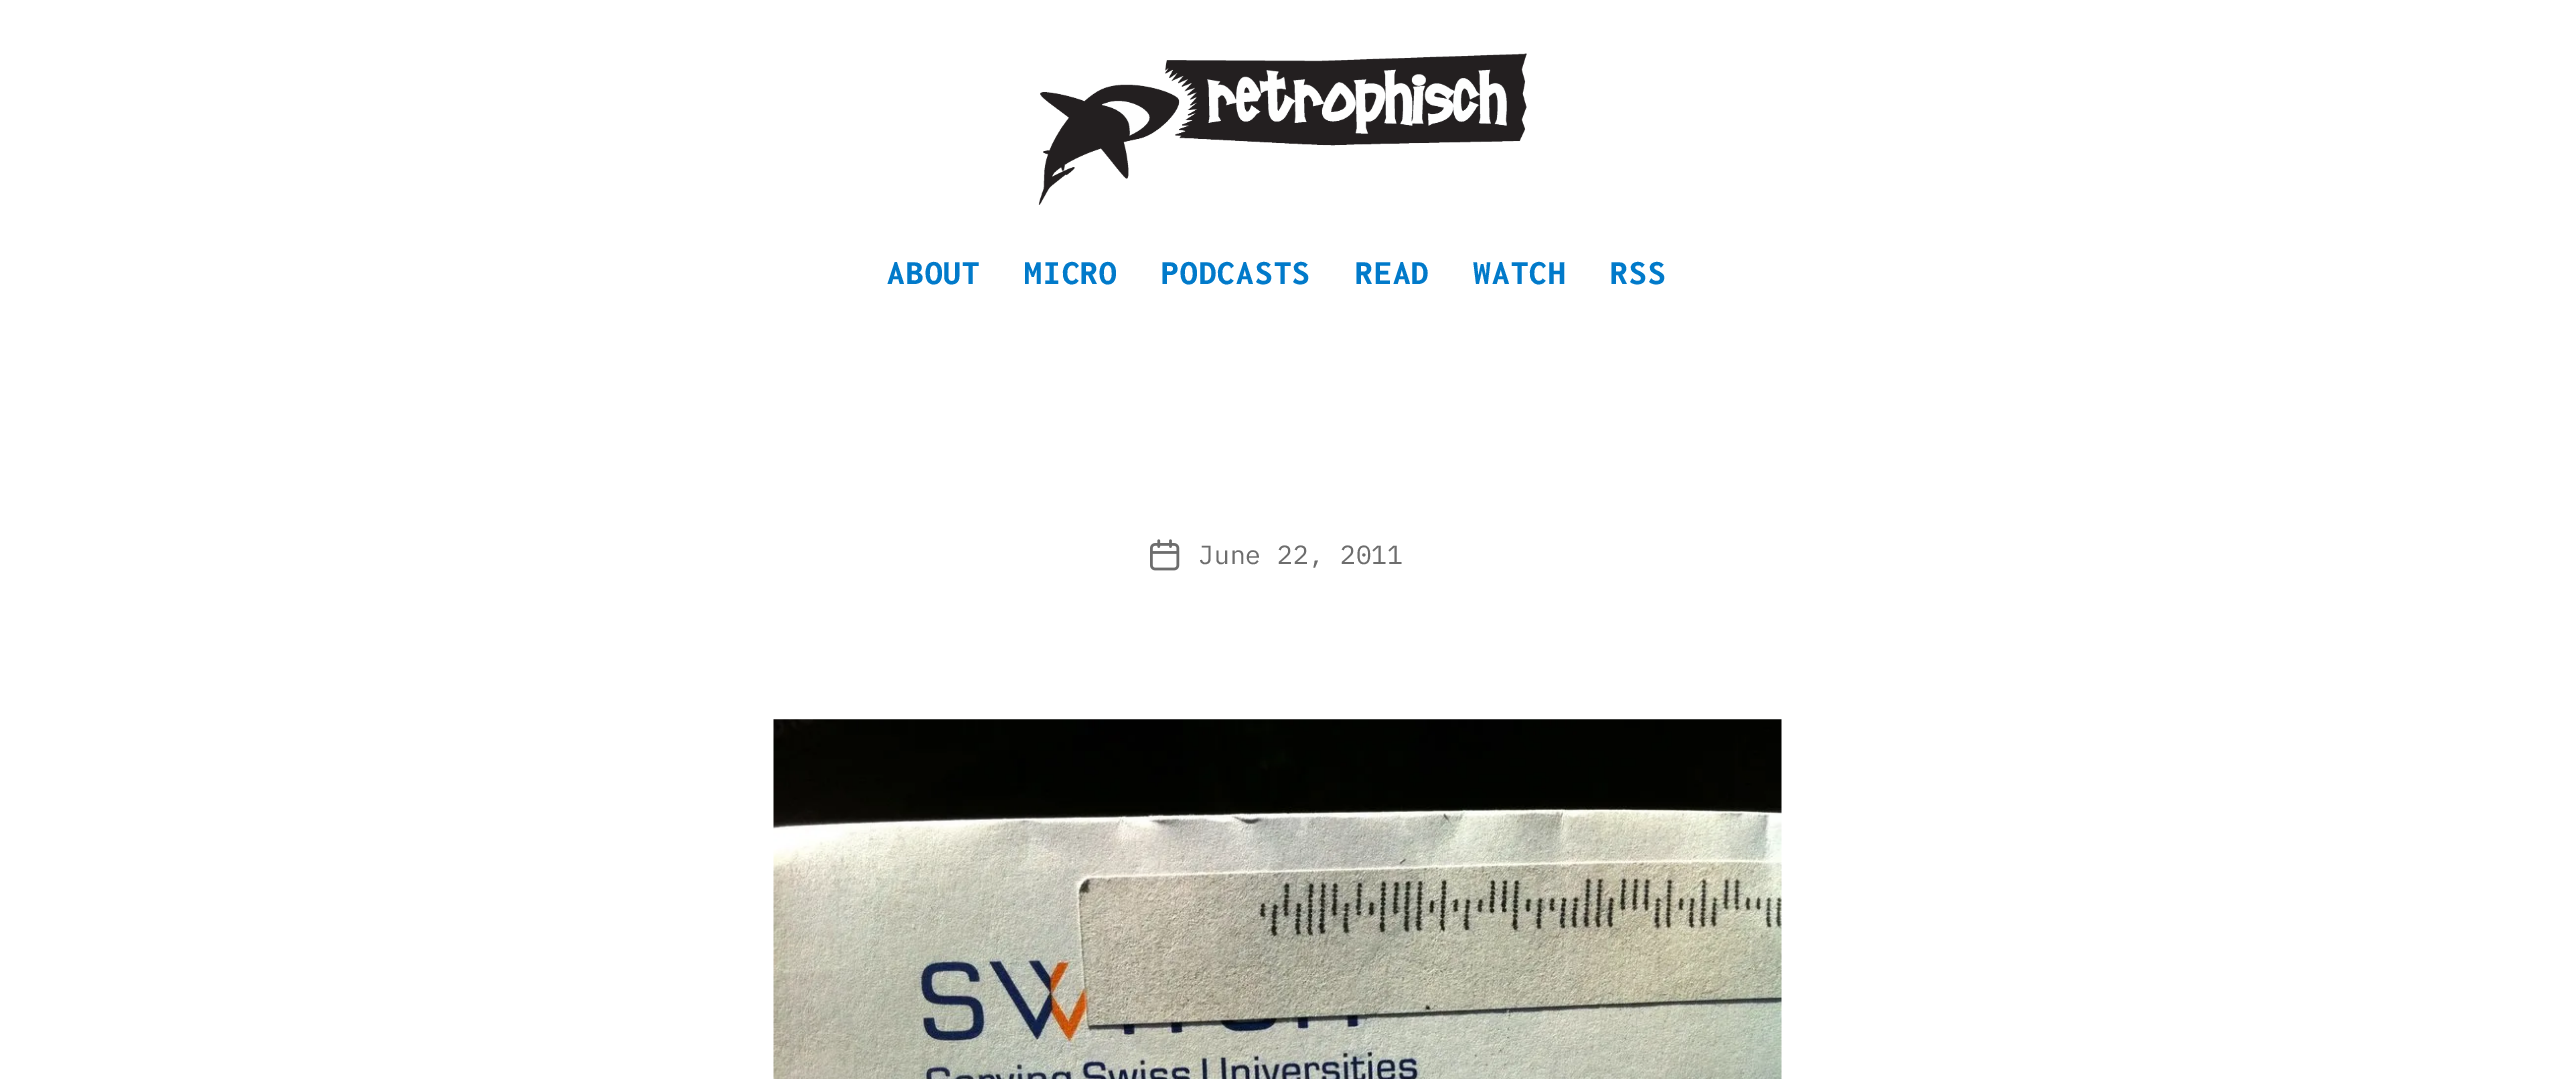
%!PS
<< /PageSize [2553 1079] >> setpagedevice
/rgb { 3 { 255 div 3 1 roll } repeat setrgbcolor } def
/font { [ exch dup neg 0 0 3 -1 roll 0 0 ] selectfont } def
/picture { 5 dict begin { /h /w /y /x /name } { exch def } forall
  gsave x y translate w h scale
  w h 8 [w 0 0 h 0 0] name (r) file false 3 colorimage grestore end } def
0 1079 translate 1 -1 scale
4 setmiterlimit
255 255 255 rgb
0 0 2553 1079 rectfill
(img/1.rgb) 1038 53 489 152 picture
(img/2.rgb) 1150 539 30 32 picture
(img/3.rgb) 773 719 1009 360 picture
/Inconsolata-ExtraBold 35 font
1 122 202 rgb
887 284 moveto 1.25 0 (ABOUT) ashow
1024 284 moveto 1.25 0 (MICRO) ashow
1161 284 moveto 1.25 0 (PODCASTS) ashow
1355 284 moveto 1.25 0 (READ) ashow
1473 284 moveto 1.25 0 (WATCH) ashow
1610 284 moveto 1.25 0 (RSS) ashow
/IBMPlexMono-Regular 26.25 font
109 109 109 rgb
1198 564 moveto (June 22, 2011) show
showpage
